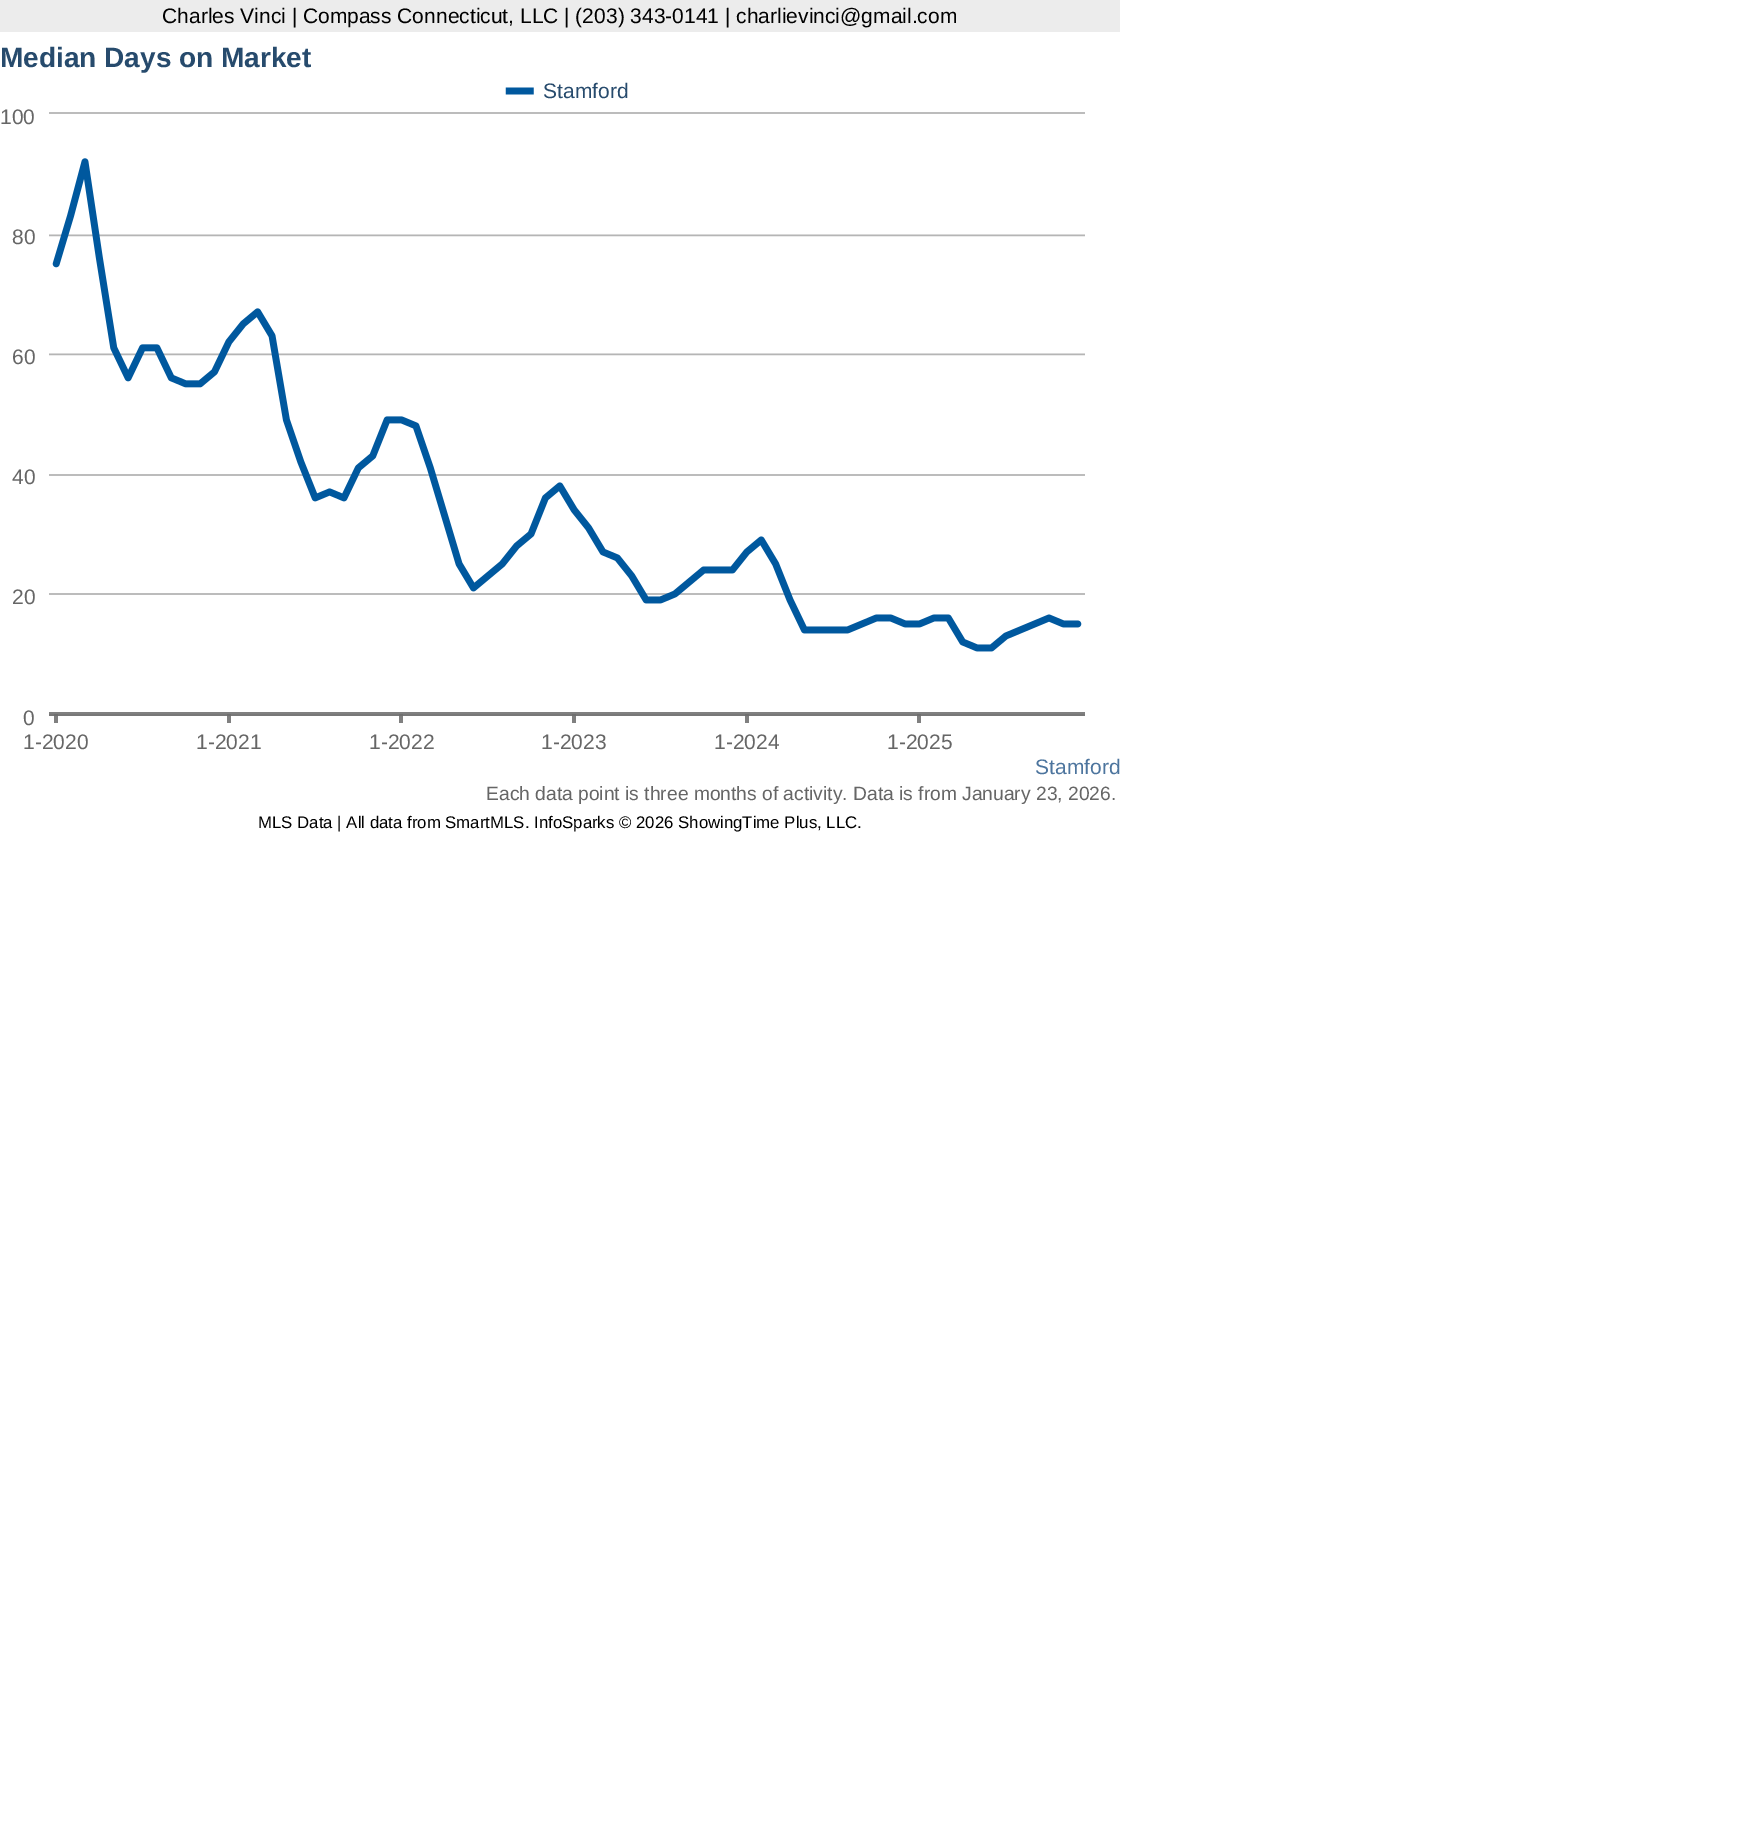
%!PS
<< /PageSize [1749 1832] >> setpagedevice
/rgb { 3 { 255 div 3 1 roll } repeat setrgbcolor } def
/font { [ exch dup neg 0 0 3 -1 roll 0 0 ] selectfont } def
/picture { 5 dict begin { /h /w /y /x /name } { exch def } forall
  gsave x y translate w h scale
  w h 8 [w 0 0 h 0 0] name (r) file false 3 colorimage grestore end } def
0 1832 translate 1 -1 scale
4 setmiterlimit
255 255 255 rgb
0 0 1749 1832 rectfill
236 236 236 rgb
0 0 1120 32 rectfill
(img/1.rgb) 49 87 1036 636 picture
/LiberationSans-Regular 21 font
0 0 0 rgb
162 23 moveto (Charles Vinci | Compass Connecticut, LLC | \(203\) 343-0141 | charlievinci@gmail.com) show
/LiberationSans-Bold 28 font
39 75 109 rgb
0 67 moveto (Median Days on Market) show
/LiberationSans-Regular 21 font
543 98 moveto (Stamford) show
102 102 102 rgb
[
  [(100) 0 124]
  [(80) 12 244]
  [(60) 12 364]
  [(40) 12 484]
  [(20) 12 604]
  [(0) 23 725]
  [(1-2020) 23 749]
  [(1-2021) 196 749]
  [(1-2022) 369 749]
  [(1-2023) 541 749]
  [(1-2024) 714 749]
  [(1-2025) 887 749]
] { aload pop moveto show } forall
77 117 158 rgb
1035 774 moveto (Stamford) show
/LiberationSans-Regular 19.25 font
102 102 102 rgb
486 800 moveto (Each data point is three months of activity. Data is from January 23, 2026.) show
/LiberationSans-Regular 16.8 font
0 0 0 rgb
258 828 moveto (MLS Data | All data from SmartMLS. InfoSparks © 2026 ShowingTime Plus, LLC.) show
showpage
